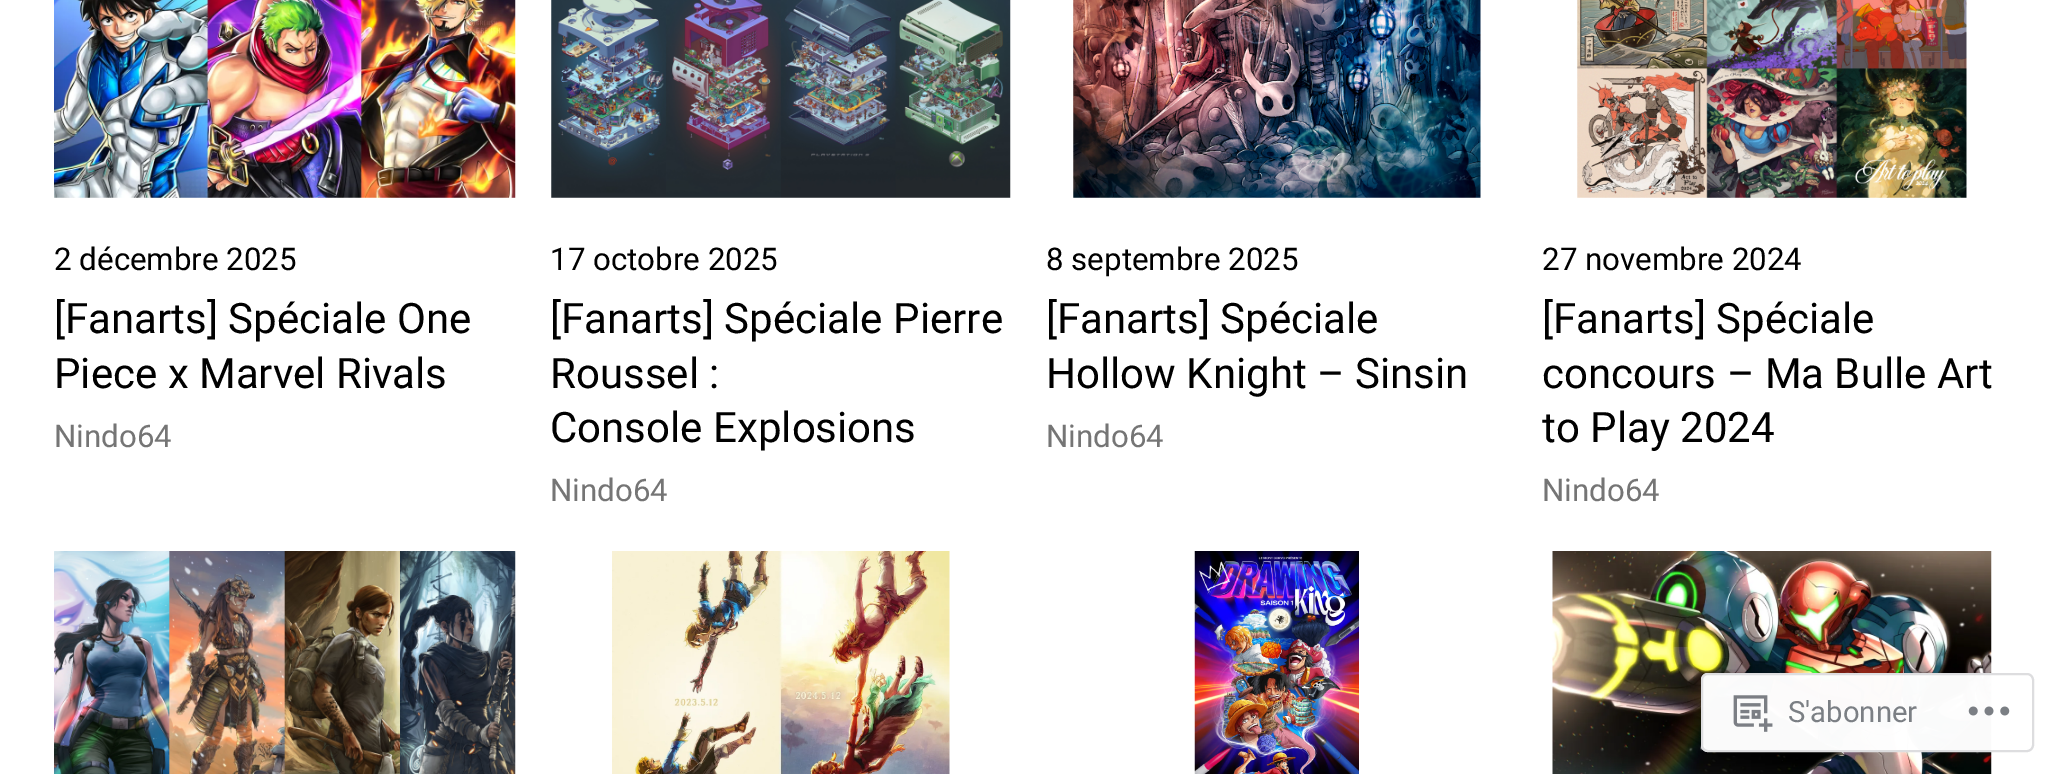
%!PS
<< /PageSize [2055 774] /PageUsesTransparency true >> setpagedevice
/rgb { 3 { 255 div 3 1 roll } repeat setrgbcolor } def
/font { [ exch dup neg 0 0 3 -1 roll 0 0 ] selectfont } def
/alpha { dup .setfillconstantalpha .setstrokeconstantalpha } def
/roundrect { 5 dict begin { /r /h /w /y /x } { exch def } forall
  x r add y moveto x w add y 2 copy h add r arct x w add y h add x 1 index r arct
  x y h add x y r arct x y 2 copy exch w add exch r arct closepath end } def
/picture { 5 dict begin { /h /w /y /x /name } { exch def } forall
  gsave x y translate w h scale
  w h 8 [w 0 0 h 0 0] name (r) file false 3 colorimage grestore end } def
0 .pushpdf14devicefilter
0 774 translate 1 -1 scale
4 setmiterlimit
255 255 255 rgb
0 0 2055 774 rectfill
(img/1.rgb) 54 0 462 198 picture
(img/2.rgb) 551 0 460 198 picture
(img/3.rgb) 1073 0 408 198 picture
(img/4.rgb) 1577 0 390 198 picture
(img/5.rgb) 54 551 462 223 picture
(img/6.rgb) 612 551 338 223 picture
(img/7.rgb) 1194 551 165 223 picture
(img/8.rgb) 1552 551 440 223 picture
0.98 alpha
1701 673 333 79 7 roundrect fill
220 220 222 rgb
2 setlinewidth
1702 674 331 77 6 roundrect stroke
1 alpha
(img/9.rgb) 1733 695 40 37 picture
(img/10.rgb) 1968 706 42 10 picture
/Roboto-Regular 31.25 font
0 0 0 rgb
54 270 moveto (2 décembre 2025) show
/Roboto-Regular 42 font
54 333 moveto ([Fanarts] Spéciale One) show
54 388 moveto (Piece x Marvel Rivals) show
/Roboto-Regular 31.25 font
117 117 117 rgb
54 447 moveto (Nindo64) show
0 0 0 rgb
550 270 moveto (17 octobre 2025) show
/Roboto-Regular 42 font
[
  [([Fanarts] Spéciale Pierre) 550 333]
  [(Roussel :) 550 388]
  [(Console Explosions) 550 442]
] { aload pop moveto show } forall
/Roboto-Regular 31.25 font
117 117 117 rgb
550 501 moveto (Nindo64) show
0 0 0 rgb
1046 270 moveto (8 septembre 2025) show
/Roboto-Regular 42 font
1046 333 moveto ([Fanarts] Spéciale) show
1046 388 moveto (Hollow Knight – Sinsin) show
/Roboto-Regular 31.25 font
117 117 117 rgb
1046 447 moveto (Nindo64) show
0 0 0 rgb
1542 270 moveto (27 novembre 2024) show
/Roboto-Regular 42 font
[
  [([Fanarts] Spéciale) 1542 333]
  [(concours – Ma Bulle Art) 1542 388]
  [(to Play 2024) 1542 442]
] { aload pop moveto show } forall
/Roboto-Regular 31.25 font
117 117 117 rgb
1542 501 moveto (Nindo64) show
/Roboto-Regular 29.25 font
123 127 132 rgb
1788 722 moveto (S'abonner) show
.poppdf14devicefilter showpage
